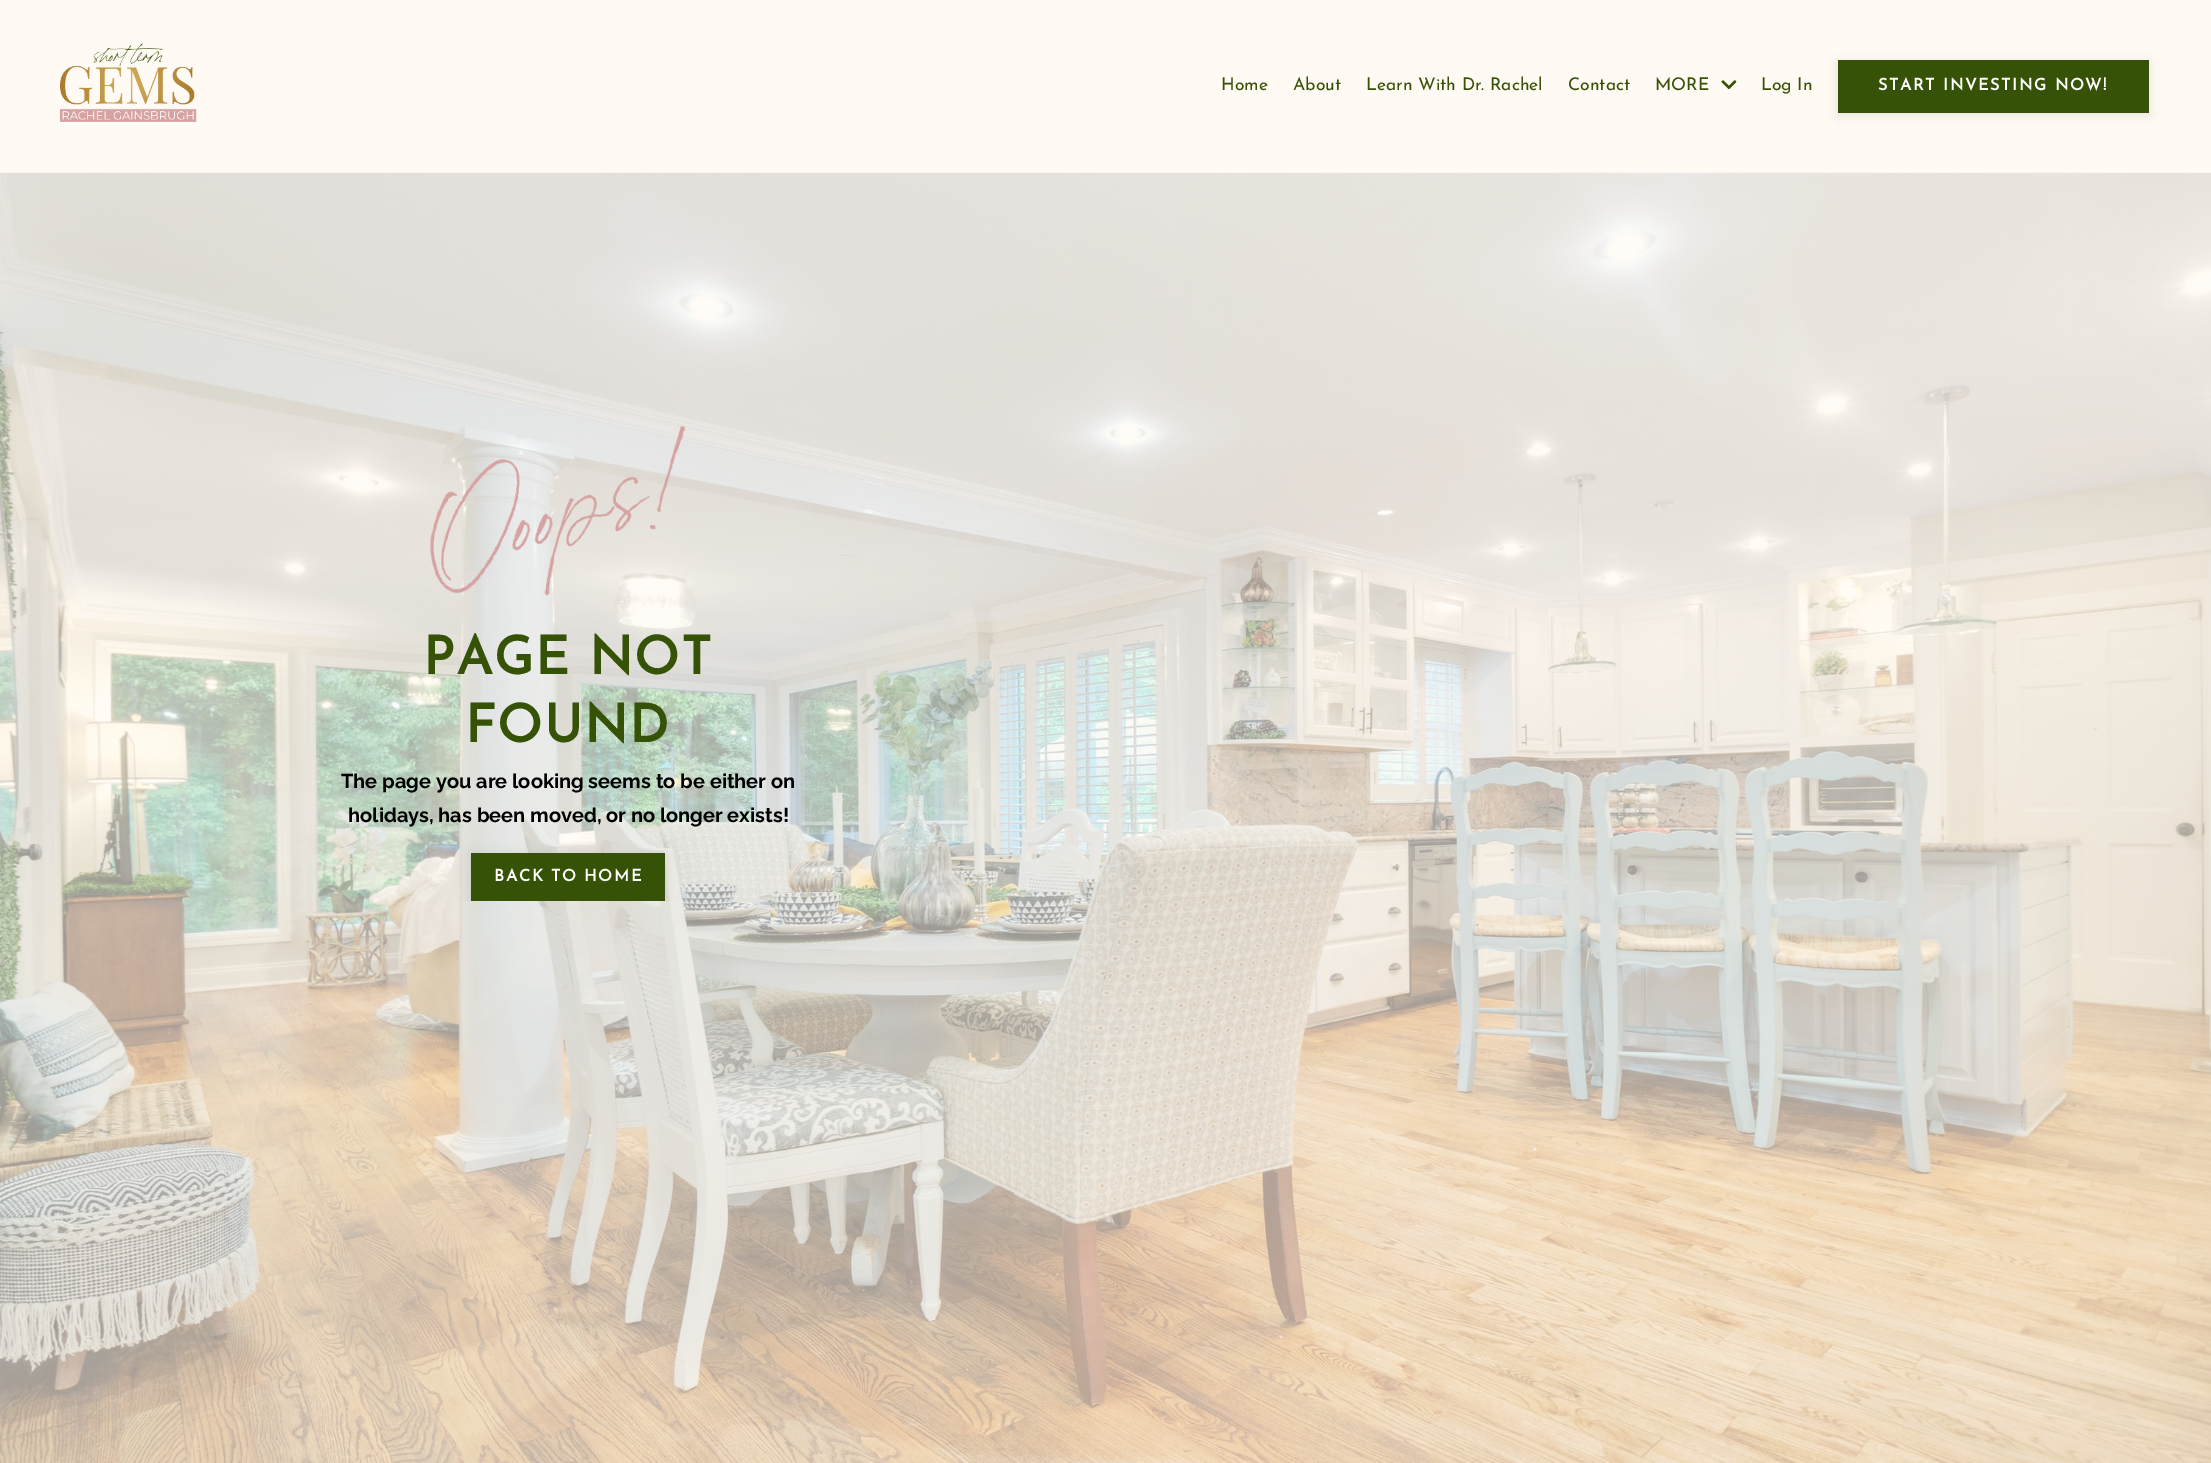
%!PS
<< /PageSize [2211 1463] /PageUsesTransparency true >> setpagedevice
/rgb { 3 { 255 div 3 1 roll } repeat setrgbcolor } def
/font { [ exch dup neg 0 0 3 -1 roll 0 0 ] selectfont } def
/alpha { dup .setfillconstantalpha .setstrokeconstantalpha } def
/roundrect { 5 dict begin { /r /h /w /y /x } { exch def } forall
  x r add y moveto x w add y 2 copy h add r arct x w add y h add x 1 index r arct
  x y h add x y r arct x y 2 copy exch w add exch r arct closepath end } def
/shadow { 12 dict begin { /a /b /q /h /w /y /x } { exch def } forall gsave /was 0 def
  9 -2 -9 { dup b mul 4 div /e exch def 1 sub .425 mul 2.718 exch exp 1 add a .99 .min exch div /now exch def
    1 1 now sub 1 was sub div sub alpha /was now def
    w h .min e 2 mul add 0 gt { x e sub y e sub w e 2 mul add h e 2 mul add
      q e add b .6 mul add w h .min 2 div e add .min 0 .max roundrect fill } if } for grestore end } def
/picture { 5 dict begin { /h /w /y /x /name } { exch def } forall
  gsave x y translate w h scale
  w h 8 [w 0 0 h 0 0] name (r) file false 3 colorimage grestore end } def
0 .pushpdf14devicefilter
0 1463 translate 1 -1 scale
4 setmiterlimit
255 255 255 rgb
0 0 2211 1463 rectfill
(img/3.rgb) 0 172 2211 1291 picture
0.85 alpha
255 249 241 rgb
0 0 2211 173 rectfill
1 alpha
(img/1.rgb) 59 43 138 79 picture
(img/2.rgb) 1721 80 16 10 picture
0 0 0 rgb
1838 63 311 52 0 6 0.1 shadow
53 82 6 rgb
1838 60 311 53 rectfill
(img/4.rgb) 429 426 257 170 picture
gsave
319 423 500 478 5 roundrect clip newpath
0 0 0 rgb
471 855 194 49 0 6 0.1 shadow
grestore
471 853 194 48 rectfill
/JosefinSans-Thin 17.5 font
[
  [(Home) 1221 90]
  [(About) 1293 90]
  [(Learn With Dr. Rachel) 1366 90]
  [(Contact) 1568 90]
  [(MORE) 1655 90]
  [(Log In) 1761 90]
] { aload pop moveto show } forall
/JosefinSans-Bold 16.25 font
255 255 255 rgb
1878 90 moveto 1.6 0 (START INVESTING NOW!) ashow
/JosefinSans-Bold 52.5 font
53 82 6 rgb
423 674 moveto 1.5 0 (PAGE NOT) ashow
465 742 moveto 1.5 0 (FOUND) ashow
/Raleway-Bold 20 font
0 0 0 rgb
341 788 moveto (The page you are looking seems to be either on) show
348 822 moveto (holidays, has been moved, or no longer exists!) show
/JosefinSans-Bold 16.25 font
255 255 255 rgb
494 881 moveto 1.6 0 (BACK TO HOME) ashow
.poppdf14devicefilter showpage
